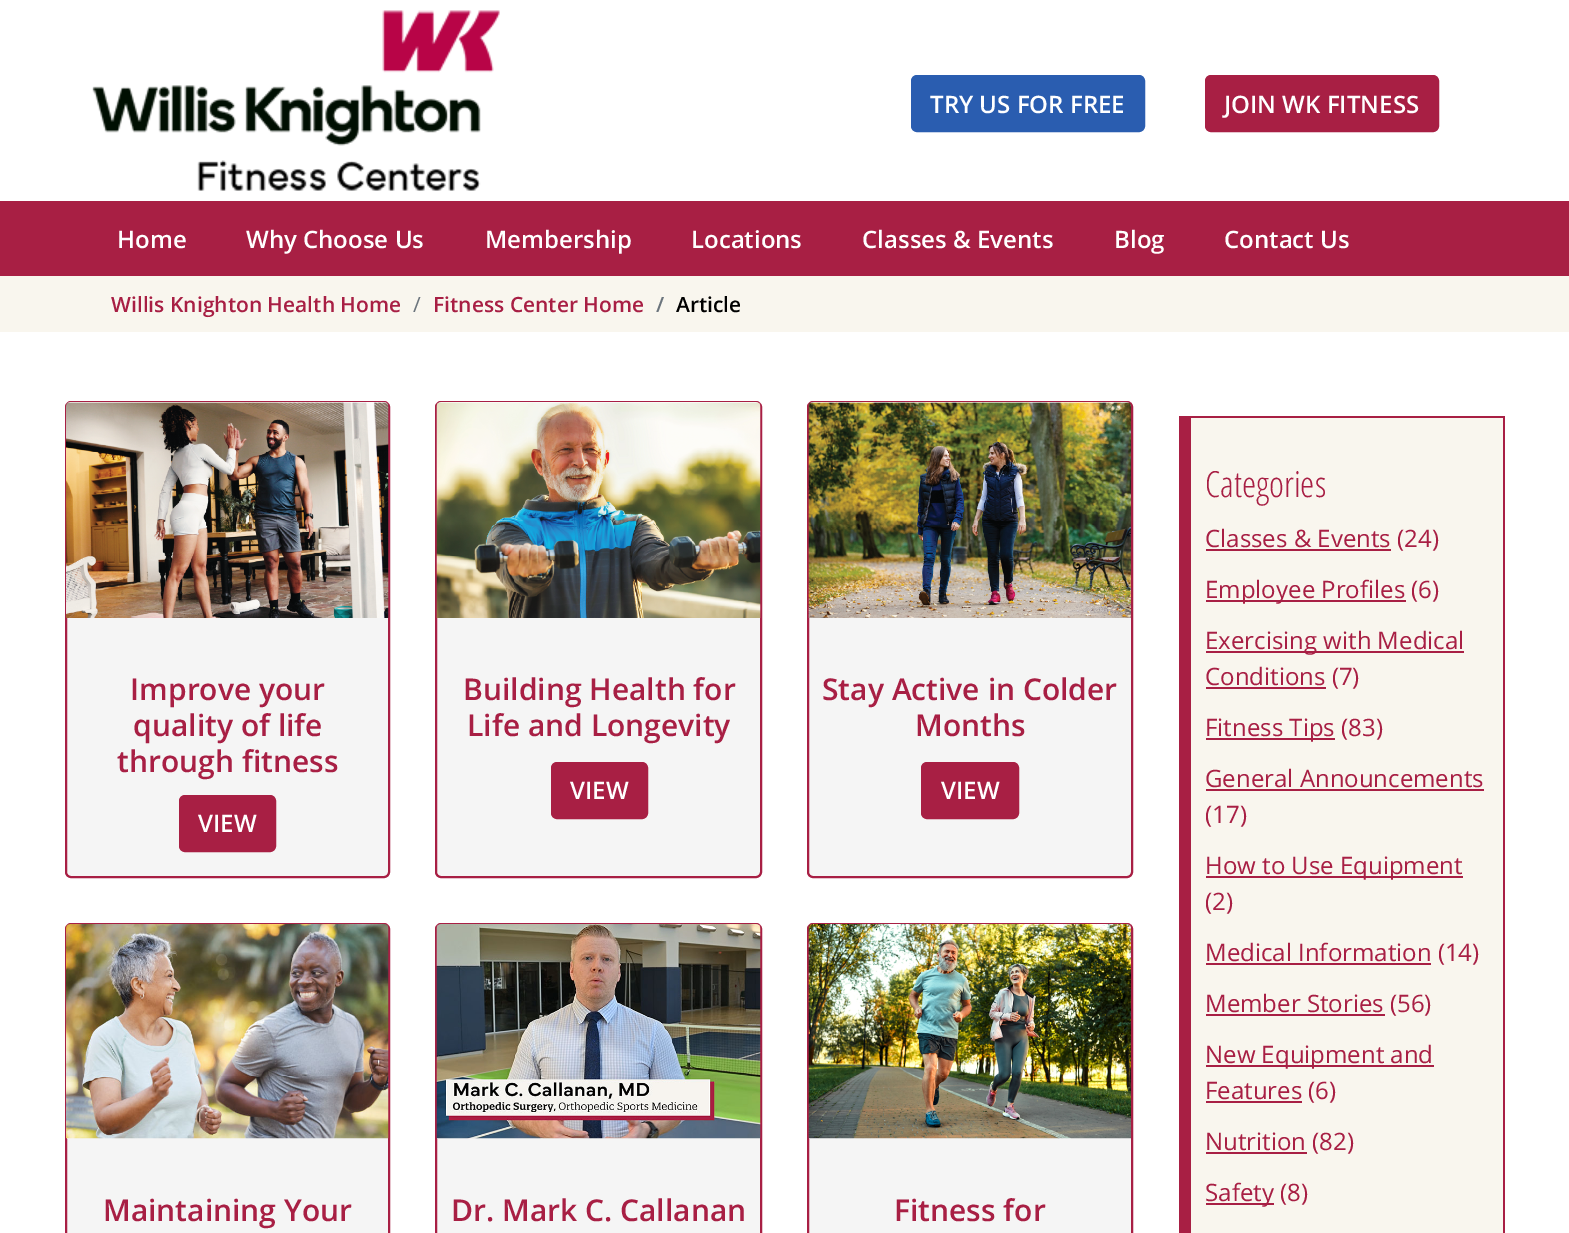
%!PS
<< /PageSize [1569 1233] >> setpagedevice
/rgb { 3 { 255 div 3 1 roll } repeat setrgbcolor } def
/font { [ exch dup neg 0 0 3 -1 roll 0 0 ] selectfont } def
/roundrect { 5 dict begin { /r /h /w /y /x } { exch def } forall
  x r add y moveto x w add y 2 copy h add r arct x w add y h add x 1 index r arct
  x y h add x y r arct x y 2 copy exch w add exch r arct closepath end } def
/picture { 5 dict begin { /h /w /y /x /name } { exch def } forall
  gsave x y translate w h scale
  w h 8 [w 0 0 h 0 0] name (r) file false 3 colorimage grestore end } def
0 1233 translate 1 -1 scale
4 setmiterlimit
255 255 255 rgb
0 0 1569 1233 rectfill
(img/1.rgb) 92 10 408 181 picture
42 93 176 rgb
912 76 232 55 5 roundrect gsave fill grestore
2 setlinewidth
stroke
168 31 68 rgb
1206 76 232 55 5 roundrect gsave fill grestore
stroke
0 201 1569 75 rectfill
249 246 238 rgb
0 276 1569 56 rectfill
245 245 245 rgb
66 402 323 475 5 roundrect gsave fill grestore
168 31 68 rgb
stroke
(img/2.rgb) 66 402 323 216 picture
180 796 95 55 5 roundrect gsave fill grestore
stroke
245 245 245 rgb
436 402 325 475 5 roundrect gsave fill grestore
168 31 68 rgb
stroke
(img/3.rgb) 436 402 325 216 picture
552 763 95 55 5 roundrect gsave fill grestore
stroke
245 245 245 rgb
808 402 324 475 5 roundrect gsave fill grestore
168 31 68 rgb
stroke
(img/4.rgb) 808 402 323 216 picture
922 763 96 55 5 roundrect gsave fill grestore
stroke
245 245 245 rgb
66 924 323 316 5 roundrect gsave fill grestore
168 31 68 rgb
stroke
(img/5.rgb) 66 924 323 215 picture
245 245 245 rgb
436 924 325 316 5 roundrect gsave fill grestore
168 31 68 rgb
stroke
(img/6.rgb) 436 924 325 215 picture
245 245 245 rgb
808 924 324 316 5 roundrect gsave fill grestore
168 31 68 rgb
stroke
(img/7.rgb) 808 924 323 215 picture
[
  [1191 418 312 815 249 246 238]
  [1191 416 314 2 168 31 68]
  [1503 416 2 817 168 31 68]
  [1179 416 12 817 168 31 68]
  [1206 549 185 2 168 31 68]
  [1206 600 200 2 168 31 68]
  [1206 651 258 2 168 31 68]
  [1206 687 120 2 168 31 68]
  [1206 738 129 2 168 31 68]
  [1206 789 278 2 168 31 68]
  [1206 876 257 2 168 31 68]
  [1206 963 225 2 168 31 68]
  [1206 1014 179 2 168 31 68]
  [1206 1065 228 2 168 31 68]
  [1206 1101 96 2 168 31 68]
  [1206 1152 101 2 168 31 68]
  [1206 1203 68 2 168 31 68]
] { aload pop rgb rectfill } forall
/OpenSans-SemiBold 24 font
255 255 255 rgb
[
  [(TRY US FOR FREE) 930 113]
  [(JOIN WK FITNESS) 1224 113]
  [(Home) 117 248]
  [(Why Choose Us) 246 248]
  [(Membership) 485 248]
  [(Locations) 691 248]
  [(Classes & Events) 862 248]
  [(Blog) 1114 248]
  [(Contact Us) 1224 248]
] { aload pop moveto show } forall
/OpenSans-SemiBold 21 font
168 31 68 rgb
111 312 moveto (Willis Knighton Health Home) show
/OpenSans-Regular 21 font
108 117 125 rgb
413 312 moveto (/) show
/OpenSans-SemiBold 21 font
168 31 68 rgb
433 312 moveto (Fitness Center Home) show
108 117 125 rgb
656 312 moveto (/) show
0 0 0 rgb
676 312 moveto (Article) show
/OpenSans-SemiBold 30 font
168 31 68 rgb
[
  [(Improve your) 130 700]
  [(quality of life) 133 736]
  [(through fitness) 117 772]
] { aload pop moveto show } forall
/OpenSans-SemiBold 24 font
255 255 255 rgb
198 832 moveto (VIEW) show
/OpenSans-SemiBold 30 font
168 31 68 rgb
463 700 moveto (Building Health for) show
467 736 moveto (Life and Longevity) show
/OpenSans-SemiBold 24 font
255 255 255 rgb
570 799 moveto (VIEW) show
/OpenSans-SemiBold 30 font
168 31 68 rgb
822 700 moveto (Stay Active in Colder) show
915 736 moveto (Months) show
/OpenSans-SemiBold 24 font
255 255 255 rgb
941 799 moveto (VIEW) show
/OpenSans-SemiBold 30 font
168 31 68 rgb
[
  [(Maintaining Your) 103 1221]
  [(Dr. Mark C. Callanan) 451 1221]
  [(Fitness for) 894 1221]
] { aload pop moveto show } forall
/OpenSans-Light 36 font
1205 497 moveto (Categories) show
/OpenSans-Regular 24 font
[
  [(Classes & Events \(24\)) 1205 547]
  [(Employee Profiles \(6\)) 1205 598]
  [(Exercising with Medical) 1205 649]
  [(Conditions \(7\)) 1205 685]
  [(Fitness Tips \(83\)) 1205 736]
  [(General Announcements) 1205 787]
  [(\(17\)) 1205 823]
  [(How to Use Equipment) 1205 874]
  [(\(2\)) 1205 910]
  [(Medical Information \(14\)) 1205 961]
  [(Member Stories \(56\)) 1205 1012]
  [(New Equipment and) 1205 1063]
  [(Features \(6\)) 1205 1099]
  [(Nutrition \(82\)) 1205 1150]
  [(Safety \(8\)) 1205 1201]
] { aload pop moveto show } forall
showpage
